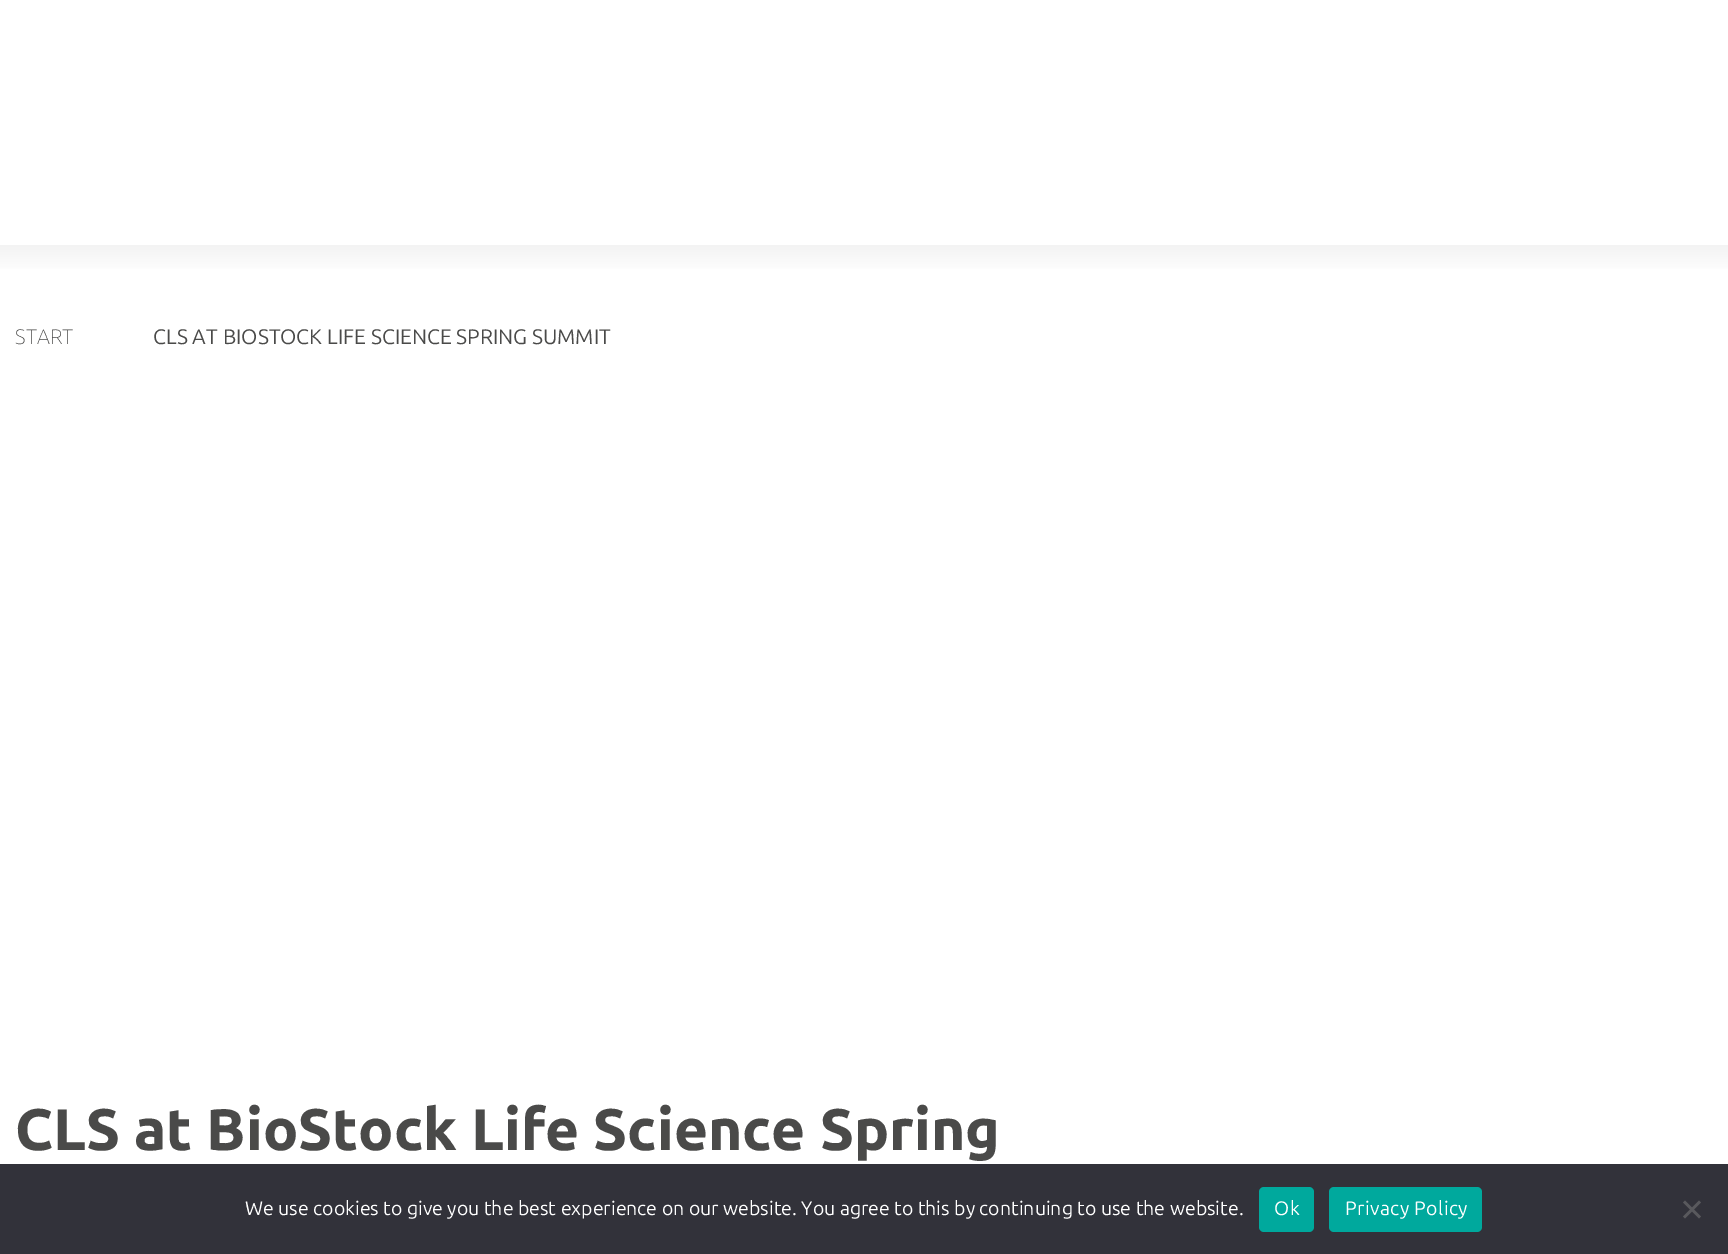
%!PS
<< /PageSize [1728 1254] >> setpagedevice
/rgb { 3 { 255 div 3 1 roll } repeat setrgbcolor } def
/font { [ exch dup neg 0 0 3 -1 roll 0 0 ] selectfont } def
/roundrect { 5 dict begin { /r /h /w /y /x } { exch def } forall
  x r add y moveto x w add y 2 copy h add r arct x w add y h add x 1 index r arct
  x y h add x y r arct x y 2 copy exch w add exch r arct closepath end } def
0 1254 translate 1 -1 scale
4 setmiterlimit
255 255 255 rgb
0 0 1728 1254 rectfill
gsave 0 245 moveto 1728 245 lineto 1728 269 lineto 0 269 lineto closepath clip newpath
<< /ShadingType 2 /ColorSpace /DeviceRGB /Coords [864 244 864 275] /Extend [true true] /Function << /FunctionType 2 /Domain [0 1] /C0 [0.953 0.953 0.953] /C1 [1 1 1] /N 1 >> >> shfill grestore
50 50 58 rgb
0 1164 1728 90 rectfill
0 169 157 rgb
1259 1187 55 45 5 roundrect fill
1329 1187 153 45 5 roundrect fill
89 89 93 rgb
1699 1200.5 moveto 1701 1202.5 lineto 1685 1218.5 lineto 1683 1216.5 lineto closepath fill
1683 1202.5 moveto 1685 1200.5 lineto 1701 1216.5 lineto 1699 1218.5 lineto closepath fill
/Ubuntu-Thin 21 font
74 74 73 rgb
15 344 moveto (START) show
/Ubuntu-Regular 21 font
153 344 moveto (CLS AT BIOSTOCK LIFE SCIENCE SPRING SUMMIT) show
/Ubuntu-ExtraBold 58.5 font
15 1150 moveto (CLS at BioStock Life Science Spring) show
/Ubuntu-Regular 19.5 font
255 255 255 rgb
245 1215 moveto (We use cookies to give you the best experience on our website. You agree to this by continuing to use the website.) show
1274 1215 moveto 0.4 0 (Ok) ashow
1345 1215 moveto 0.4 0 (Privacy Policy) ashow
showpage
